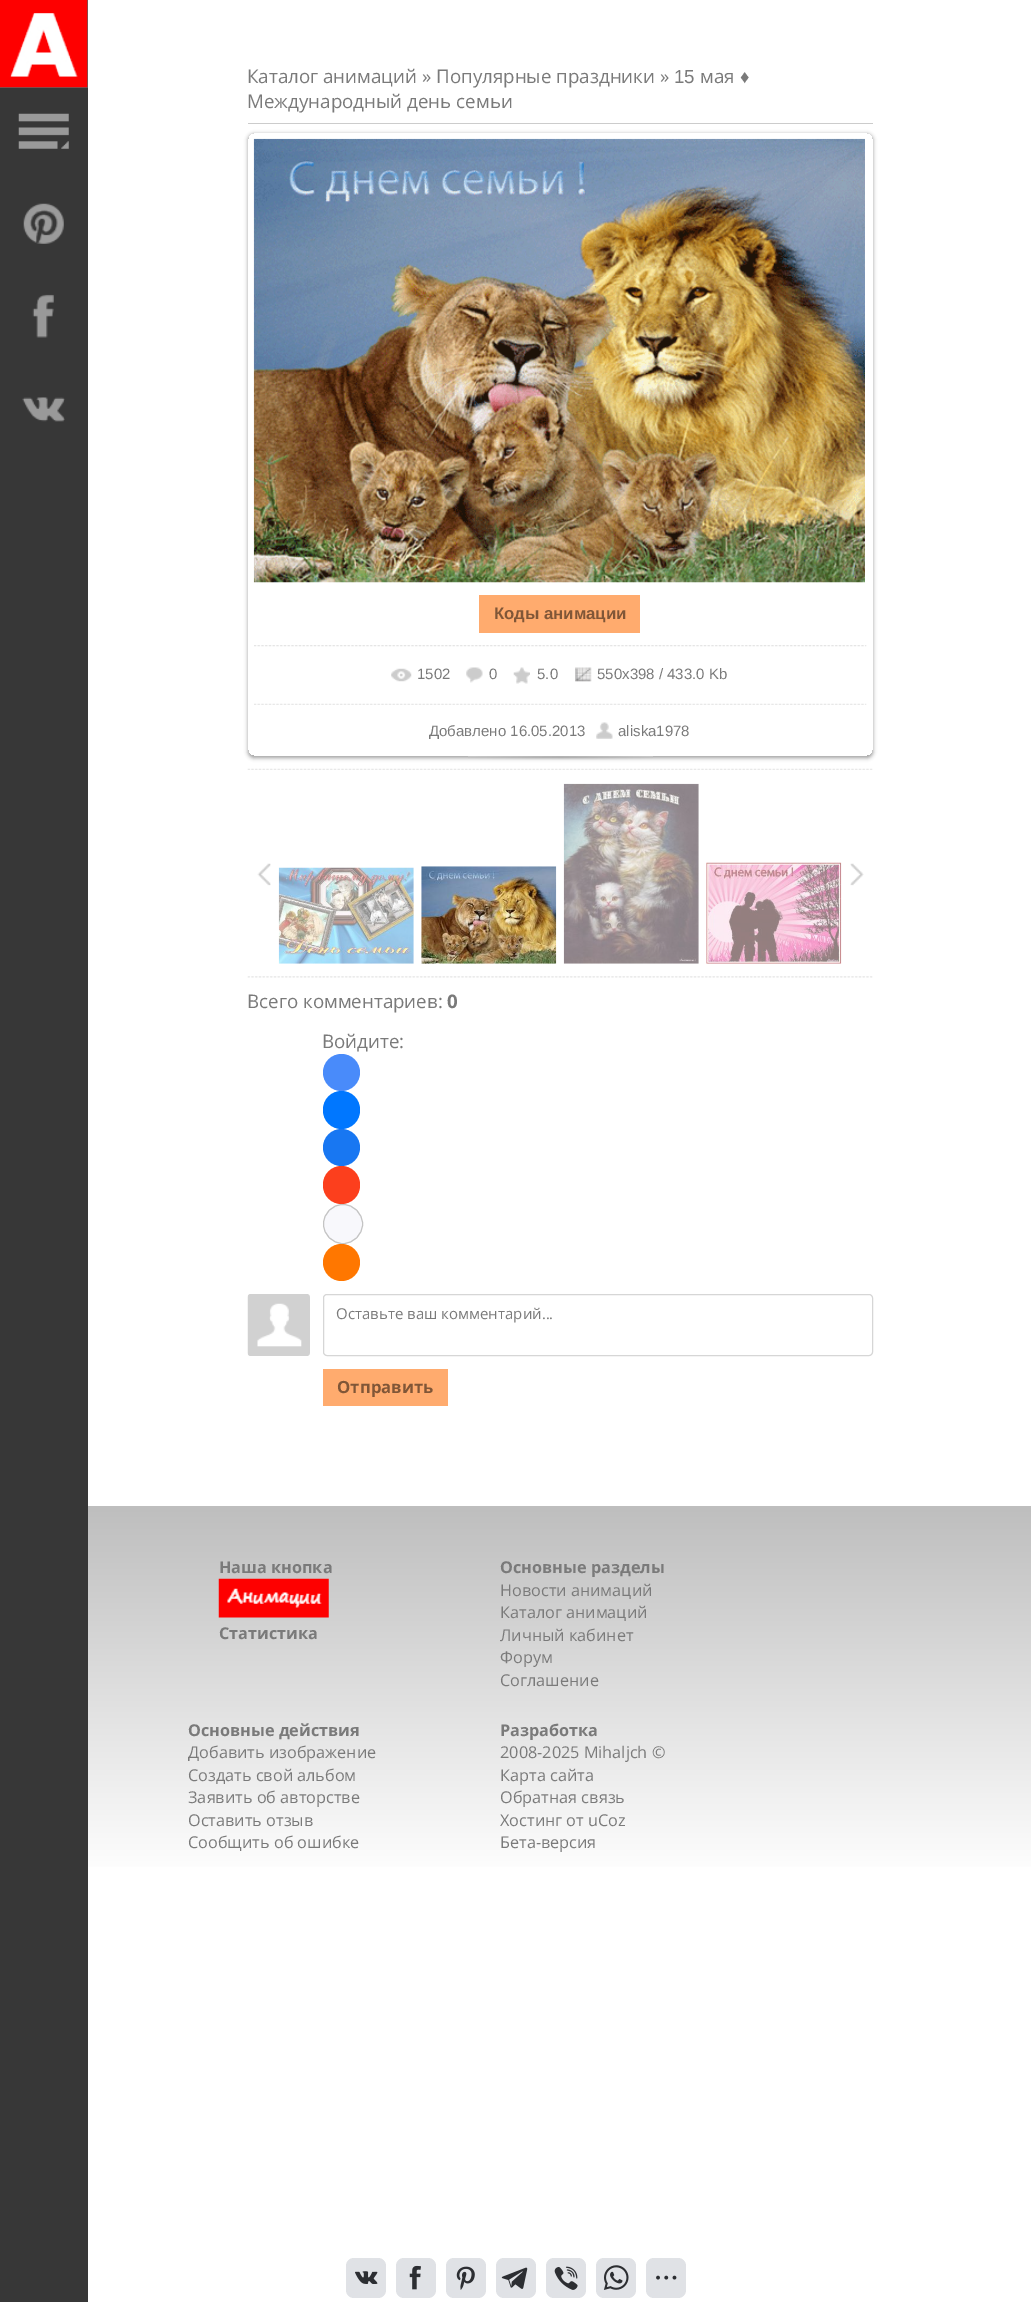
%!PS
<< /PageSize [1031 2302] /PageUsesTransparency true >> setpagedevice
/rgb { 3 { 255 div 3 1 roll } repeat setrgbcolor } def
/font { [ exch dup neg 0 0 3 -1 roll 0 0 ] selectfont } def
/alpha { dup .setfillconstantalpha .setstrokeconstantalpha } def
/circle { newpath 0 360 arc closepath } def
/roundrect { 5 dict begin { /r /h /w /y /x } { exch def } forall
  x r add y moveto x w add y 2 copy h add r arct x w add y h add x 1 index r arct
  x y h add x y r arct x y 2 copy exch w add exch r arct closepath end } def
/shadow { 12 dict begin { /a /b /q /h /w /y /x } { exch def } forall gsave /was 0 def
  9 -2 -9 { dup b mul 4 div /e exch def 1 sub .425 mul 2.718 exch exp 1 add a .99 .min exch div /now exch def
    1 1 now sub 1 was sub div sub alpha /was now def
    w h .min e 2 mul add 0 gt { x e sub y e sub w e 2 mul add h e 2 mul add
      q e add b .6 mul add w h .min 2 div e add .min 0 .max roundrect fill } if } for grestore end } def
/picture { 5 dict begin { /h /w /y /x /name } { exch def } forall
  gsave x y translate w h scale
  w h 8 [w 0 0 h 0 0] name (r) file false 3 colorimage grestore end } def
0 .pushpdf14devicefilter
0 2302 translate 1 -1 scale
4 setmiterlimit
255 255 255 rgb
0 0 1031 2302 rectfill
55 55 55 rgb
0 88 88 2214 rectfill
95 95 95 rgb
0 0 88 88 rectfill
(img/1.rgb) 0 0 88 88 picture
(img/2.rgb) 18 113 51 36 picture
(img/3.rgb) 23 203 41 41 picture
(img/4.rgb) 32 294 22 44 picture
(img/5.rgb) 22 397 43 25 picture
204 204 204 rgb
248 123 625 1 rectfill
gsave
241 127 moveto 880 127 lineto 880 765 lineto 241 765 lineto closepath 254 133 moveto 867 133 lineto 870.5 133 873 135.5 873 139 curveto 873 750 lineto 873 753.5 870.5 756 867 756 curveto 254 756 lineto 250.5 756 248 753.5 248 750 curveto 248 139 lineto 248 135.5 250.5 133 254 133 curveto closepath eoclip newpath
0 0 0 rgb
248 134 625 624 6 2 0.37 shadow
grestore
(img/6.rgb) 253 138 612 445 picture
255 171 110 rgb
479 595 161 38 rectfill
(img/7.rgb) 254 645 613 2 picture
(img/8.rgb) 391 668 21 14 picture
(img/9.rgb) 466 667 17 16 picture
(img/10.rgb) 513 667 17 17 picture
(img/11.rgb) 575 667 17 15 picture
(img/12.rgb) 254 703 613 2 picture
(img/13.rgb) 596 722 17 17 picture
(img/14.rgb) 468 756 185 4 picture
(img/15.rgb) 247 768 626 2 picture
(img/16.rgb) 257 863 14 23 picture
(img/17.rgb) 278 867 136 97 picture
(img/18.rgb) 421 866 136 98 picture
(img/19.rgb) 563 783 136 181 picture
(img/20.rgb) 706 862 136 102 picture
(img/21.rgb) 850 863 14 23 picture
(img/22.rgb) 247 976 626 2 picture
73 139 250 rgb
341.5 1072.5 18.5 circle fill
0 119 255 rgb
323 1091 37 38 18.5 roundrect fill
24 119 242 rgb
341.5 1147.5 18.5 circle fill
252 63 29 rgb
323 1166 37 38 18.5 roundrect fill
248 248 252 rgb
343 1224 19.5 circle gsave fill grestore
196 196 196 rgb
stroke
255 119 0 rgb
341.5 1262.5 18.5 circle fill
(img/23.rgb) 247 1294 63 62 picture
214 214 214 rgb
323.5 1294.5 549 61 3.5 roundrect stroke
255 171 110 rgb
323 1369 125 37 rectfill
gsave 88 1506 moveto 1031 1506 lineto 1031 1867 lineto 88 1867 lineto closepath clip newpath
<< /ShadingType 2 /ColorSpace /DeviceRGB /Coords [559 1506 559 1881] /Extend [true true] /Function << /FunctionType 2 /Domain [0 1] /C0 [0.745 0.745 0.745] /C1 [1 1 1] /N 1 >> >> shfill grestore
(img/24.rgb) 218 1578 111 40 picture
224 226 230 rgb
346 2258 40 40 8 roundrect fill
(img/25.rgb) 355 2271 23 13 picture
396 2258 40 40 8 roundrect fill
(img/26.rgb) 409 2265 12 25 picture
446 2258 40 40 8 roundrect fill
(img/27.rgb) 456 2266 19 24 picture
496 2258 40 40 8 roundrect fill
(img/28.rgb) 501 2267 27 22 picture
546 2258 40 40 8 roundrect fill
(img/29.rgb) 554 2266 24 24 picture
596 2258 40 40 8 roundrect fill
(img/30.rgb) 603 2265 26 25 picture
646 2258 40 40 8 roundrect fill
(img/31.rgb) 656 2275 21 5 picture
/OpenSans-Regular 18.75 font
122 122 122 rgb
247 83 moveto (Каталог анимаций » Популярные праздники ») show
/LiberationSans-Regular 18.75 font
674 83 moveto (15) show
/OpenSans-Regular 18.75 font
700 83 moveto (мая) show
/LiberationSans-Regular 18.75 font
740 83 moveto (♦) show
/OpenSans-Regular 18.75 font
247 108 moveto (Международный день семьи) show
/LiberationSans-Bold 16.75 font
128 86 55 rgb
494 619 moveto (Коды анимации) show
/LiberationSans-Regular 15 font
122 122 122 rgb
[
  [(1502) 417 679]
  [(0) 489 679]
  [(5.0) 537 679]
  [(550x398 / 433.0 Kb) 597 679]
  [(Добавлено 16.05.2013) 429 736]
  [(aliska1978) 618 736]
] { aload pop moveto show } forall
/OpenSans-Regular 18.75 font
247 1008 moveto (Всего комментариев:) show
/OpenSans-Bold 18.75 font
447 1008 moveto (0) show
/OpenSans-Regular 18.75 font
322 1048 moveto (Войдите:) show
/OpenSans-Regular 15 font
336 1319 moveto (Оставьте ваш комментарий...) show
/OpenSans-Bold 16.75 font
128 86 55 rgb
337 1393 moveto (Отправить) show
/OpenSans-Bold 16.25 font
122 122 122 rgb
[
  [(Наша кнопка) 219 1573]
  [(Статистика) 219 1639]
  [(Основные разделы) 500 1573]
] { aload pop moveto show } forall
/OpenSans-Regular 16.25 font
[
  [(Новости анимаций) 500 1596]
  [(Каталог анимаций) 500 1618]
  [(Личный кабинет) 500 1641]
  [(Форум) 500 1663]
  [(Соглашение) 500 1686]
] { aload pop moveto show } forall
/OpenSans-Bold 16.25 font
188 1736 moveto (Основные действия) show
/OpenSans-Regular 16.25 font
[
  [(Добавить изображение) 188 1758]
  [(Создать свой альбом) 188 1781]
  [(Заявить об авторстве) 188 1803]
  [(Оставить отзыв) 188 1826]
  [(Сообщить об ошибке) 188 1848]
] { aload pop moveto show } forall
/OpenSans-Bold 16.25 font
500 1736 moveto (Разработка) show
/OpenSans-Regular 16.25 font
[
  [(2008-2025 Mihaljch ©) 500 1758]
  [(Карта сайта) 500 1781]
  [(Обратная связь) 500 1803]
  [(Хостинг от uCoz) 500 1826]
  [(Бета-версия) 500 1848]
] { aload pop moveto show } forall
.poppdf14devicefilter showpage
